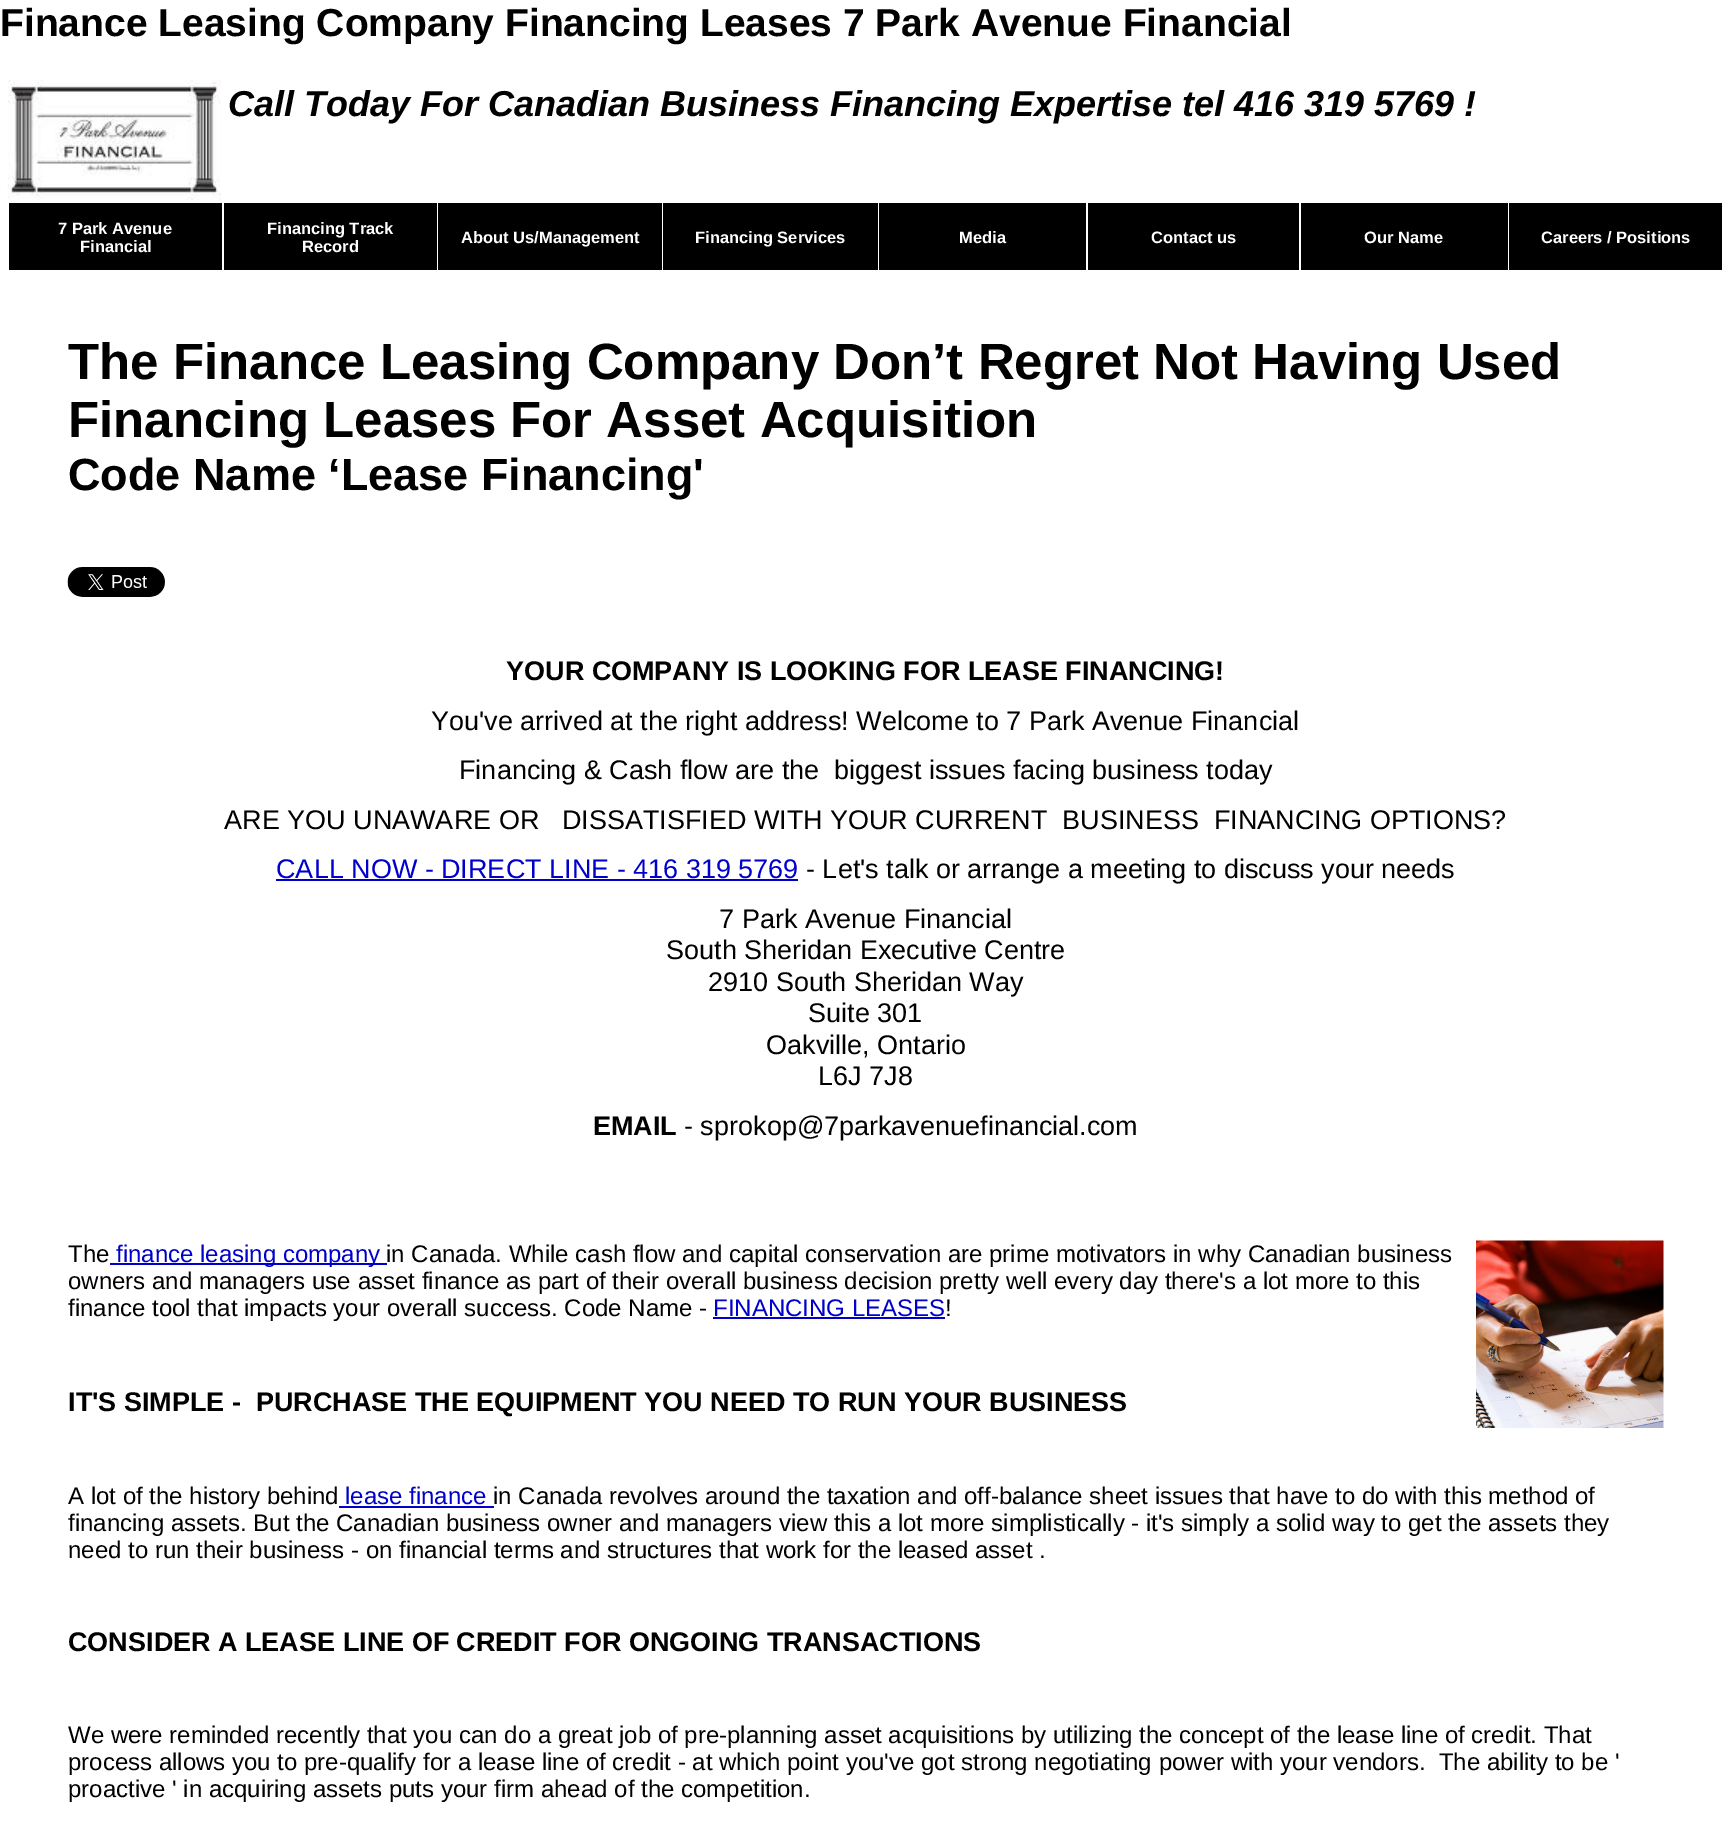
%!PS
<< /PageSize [1731 1836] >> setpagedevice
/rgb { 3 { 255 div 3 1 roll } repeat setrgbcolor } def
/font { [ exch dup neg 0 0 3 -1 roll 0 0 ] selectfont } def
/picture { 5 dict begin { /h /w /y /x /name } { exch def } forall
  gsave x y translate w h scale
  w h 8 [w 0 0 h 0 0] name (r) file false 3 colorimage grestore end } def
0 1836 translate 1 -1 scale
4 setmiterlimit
255 255 255 rgb
0 0 1731 1836 rectfill
(img/1.rgb) 7 79 214 121 picture
[
  [9 203 213 67 0 0 0]
  [224 203 213 67 0 0 0]
  [438 203 224 67 0 0 0]
  [663 203 215 67 0 0 0]
  [879 203 207 67 0 0 0]
  [1088 203 211 67 0 0 0]
  [1301 203 207 67 0 0 0]
  [1509 203 213 67 0 0 0]
] { aload pop rgb rectfill } forall
(img/2.rgb) 67 567 98 30 picture
[
  [276 879 522 2 0 0 204]
  [110 1263 277 2 0 0 204]
  [713 1317 232 2 0 0 204]
] { aload pop rgb rectfill } forall
(img/3.rgb) 1476 1240 188 188 picture
339 1506 155 2 rectfill
/LiberationSans-Bold 39 font
0 0 0 rgb
0 36 moveto (Finance Leasing Company Financing Leases 7 Park Avenue Financial) show
/LiberationSans-BoldItalic 36 font
228 116 moveto (Call Today For Canadian Business Financing Expertise tel 416 319 5769 !) show
/LiberationSans-Bold 16.5 font
255 255 255 rgb
[
  [(7 Park Avenue) 58 234]
  [(Financial) 80 252]
  [(Financing Track) 267 234]
  [(Record) 302 252]
  [(About Us/Management) 461 243]
  [(Financing Services) 695 243]
  [(Media) 959 243]
  [(Contact us) 1151 243]
  [(Our Name) 1364 243]
  [(Careers / Positions) 1541 243]
] { aload pop moveto show } forall
/LiberationSans-Bold 51 font
0 0 0 rgb
68 379 moveto (The Finance Leasing Company Don’t Regret Not Having Used) show
68 437 moveto (Financing Leases For Asset Acquisition) show
/LiberationSans-Bold 45 font
68 490 moveto (Code Name ‘Lease Financing') show
/LiberationSans-Bold 27 font
506 680 moveto (YOUR COMPANY IS LOOKING FOR LEASE FINANCING!) show
/LiberationSans-Regular 27 font
[
  [(You've arrived at the right address! Welcome to 7 Park Avenue Financial) 431 730]
  [(Financing & Cash flow are the  biggest issues facing business today) 459 779]
  [(ARE YOU UNAWARE OR   DISSATISFIED WITH YOUR CURRENT  BUSINESS  FINANCING OPTIONS?) 224 829]
] { aload pop moveto show } forall
0 0 204 rgb
276 878 moveto (CALL NOW - DIRECT LINE - 416 319 5769) show
0 0 0 rgb
[
  [(- Let's talk or arrange a meeting to discuss your needs) 806 878]
  [(7 Park Avenue Financial) 719 928]
  [(South Sheridan Executive Centre) 666 959]
  [(2910 South Sheridan Way) 708 991]
  [(Suite 301) 808 1022]
  [(Oakville, Ontario) 766 1054]
  [(L6J 7J8) 818 1085]
] { aload pop moveto show } forall
/LiberationSans-Bold 27 font
593 1135 moveto (EMAIL) show
/LiberationSans-Regular 27 font
684 1135 moveto (- sprokop@7parkavenuefinancial.com) show
/LiberationSans-Regular 24 font
68 1262 moveto (The) show
0 0 204 rgb
116 1262 moveto (finance leasing company) show
0 0 0 rgb
[
  [(in Canada. While cash flow and capital conservation are prime motivators in why Canadian business) 386 1262]
  [(owners and managers use asset finance as part of their overall business decision pretty well every day there's a lot more to this) 68 1289]
  [(finance tool that impacts your overall success. Code Name -) 68 1316]
] { aload pop moveto show } forall
0 0 204 rgb
713 1316 moveto (FINANCING LEASES) show
0 0 0 rgb
945 1316 moveto (!) show
/LiberationSans-Bold 27 font
68 1411 moveto (IT'S SIMPLE -  PURCHASE THE EQUIPMENT YOU NEED TO RUN YOUR BUSINESS) show
/LiberationSans-Regular 24 font
68 1504 moveto (A lot of the history behind) show
0 0 204 rgb
345 1504 moveto (lease finance) show
0 0 0 rgb
[
  [(in Canada revolves around the taxation and off-balance sheet issues that have to do with this method of) 493 1504]
  [(financing assets. But the Canadian business owner and managers view this a lot more simplistically - it's simply a solid way to get the assets they) 68 1531]
  [(need to run their business - on financial terms and structures that work for the leased asset .) 68 1558]
] { aload pop moveto show } forall
/LiberationSans-Bold 27 font
68 1651 moveto (CONSIDER A LEASE LINE OF CREDIT FOR ONGOING TRANSACTIONS) show
/LiberationSans-Regular 24 font
[
  [(We were reminded recently that you can do a great job of pre-planning asset acquisitions by utilizing the concept of the lease line of credit. That) 68 1743]
  [(process allows you to pre-qualify for a lease line of credit - at which point you've got strong negotiating power with your vendors.  The ability to be ') 68 1770]
  [(proactive ' in acquiring assets puts your firm ahead of the competition.) 68 1797]
] { aload pop moveto show } forall
showpage
